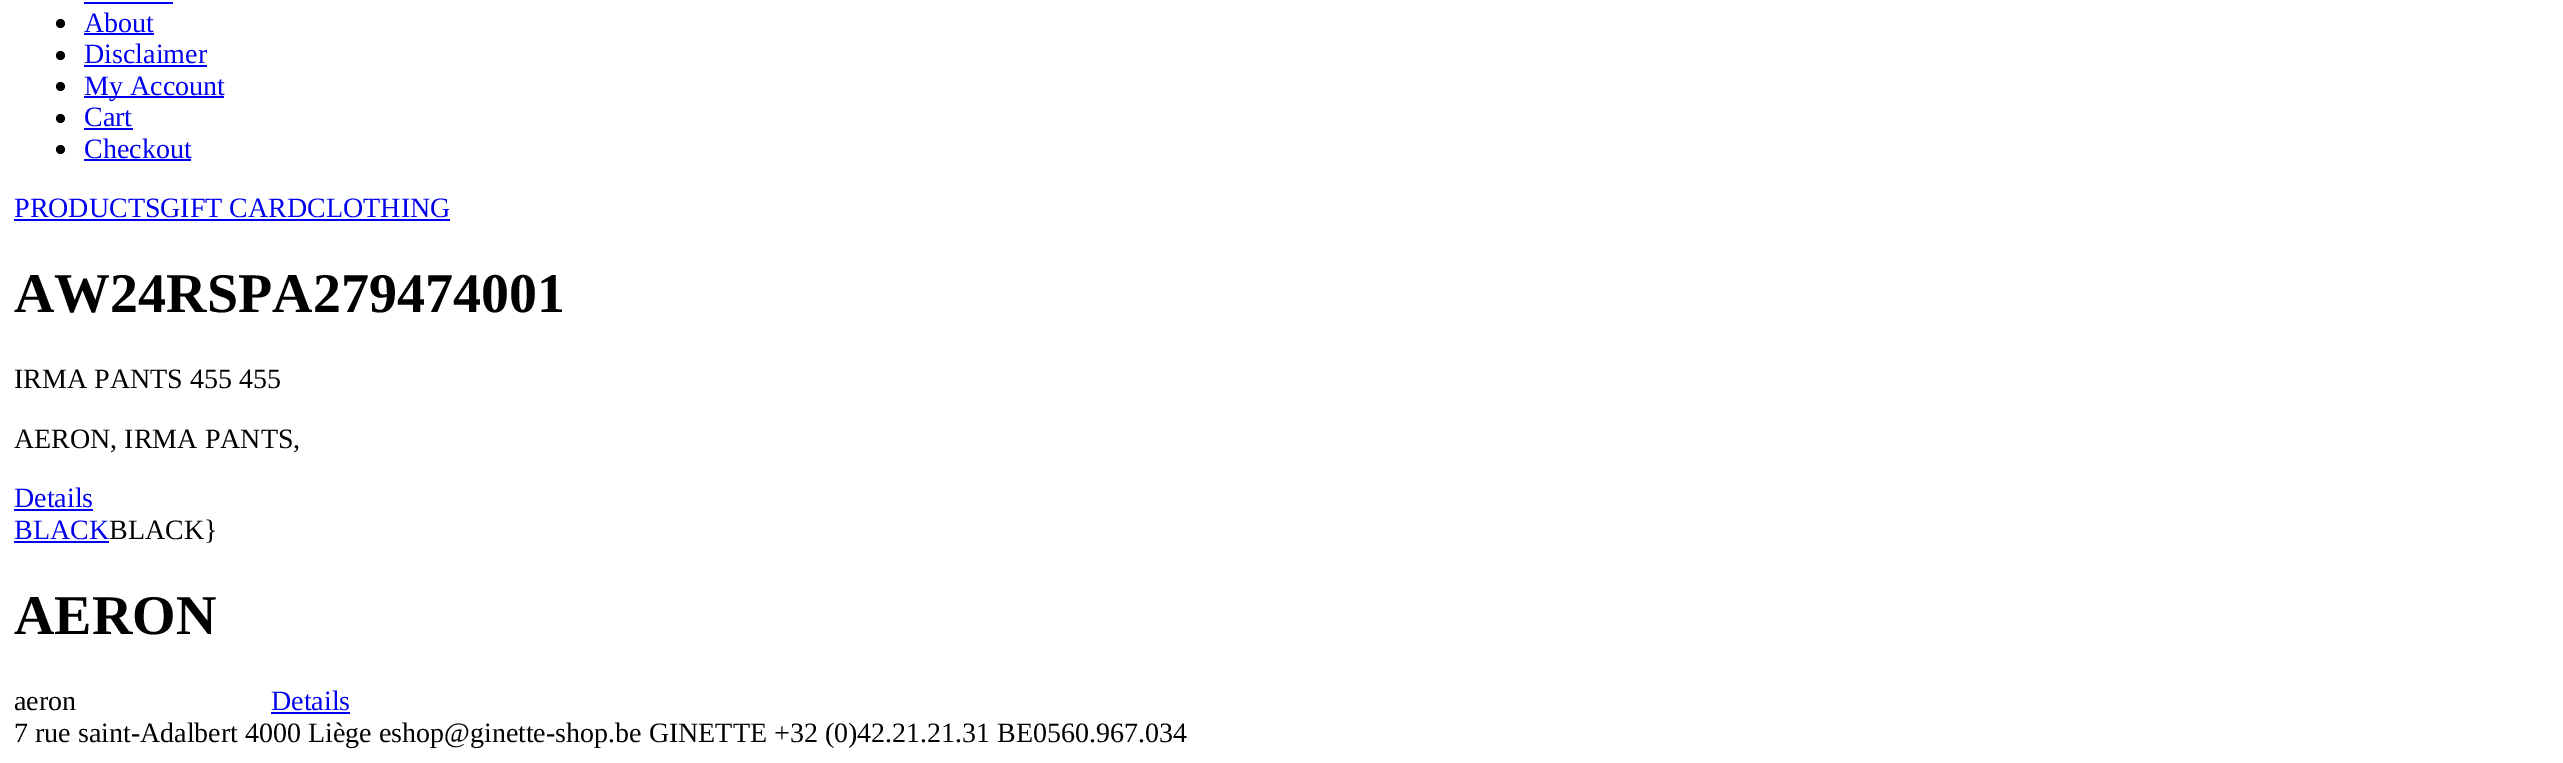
%!PS
<< /PageSize [2563 763] >> setpagedevice
/rgb { 3 { 255 div 3 1 roll } repeat setrgbcolor } def
/font { [ exch dup neg 0 0 3 -1 roll 0 0 ] selectfont } def
/circle { newpath 0 360 arc closepath } def
0 763 translate 1 -1 scale
4 setmiterlimit
255 255 255 rgb
0 0 2563 763 rectfill
0 0 238 rgb
84 2 89 2 rectfill
0 0 0 rgb
60.5 23.5 4.5 circle fill
0 0 238 rgb
84 33 70 2 rectfill
0 0 0 rgb
60.5 55.5 4.5 circle fill
0 0 238 rgb
84 65 123 2 rectfill
0 0 0 rgb
60.5 86.5 4.5 circle fill
0 0 238 rgb
84 96 140 2 rectfill
0 0 0 rgb
60.5 118.5 4.5 circle fill
0 0 238 rgb
84 128 49 2 rectfill
0 0 0 rgb
60.5 149.5 4.5 circle fill
[
  [84 159 107 2 0 0 238]
  [14 219 436 2 0 0 238]
  [14 509 79 2 0 0 238]
  [14 541 95 2 0 0 238]
  [271 712 79 2 0 0 238]
] { aload pop rgb rectfill } forall
/LiberationSerif-Regular 28 font
[
  [(About) 84 32]
  [(Disclaimer) 84 63]
  [(My Account) 84 95]
  [(Cart) 84 126]
  [(Checkout) 84 158]
  [(PRODUCTSGIFT CARDCLOTHING) 14 217]
] { aload pop moveto show } forall
/LiberationSerif-Bold 56 font
0 0 0 rgb
14 312 moveto (AW24RSPA279474001) show
/LiberationSerif-Regular 28 font
14 388 moveto (IRMA PANTS 455 455) show
14 448 moveto (AERON, IRMA PANTS,) show
0 0 238 rgb
14 507 moveto (Details) show
14 539 moveto (BLACK) show
0 0 0 rgb
109 539 moveto (BLACK}) show
/LiberationSerif-Bold 56 font
14 634 moveto (AERON) show
/LiberationSerif-Regular 28 font
14 710 moveto (aeron) show
0 0 238 rgb
271 710 moveto (Details) show
0 0 0 rgb
14 742 moveto (7 rue saint-Adalbert 4000 Liège eshop@ginette-shop.be GINETTE +32 \(0\)42.21.21.31 BE0560.967.034) show
showpage
